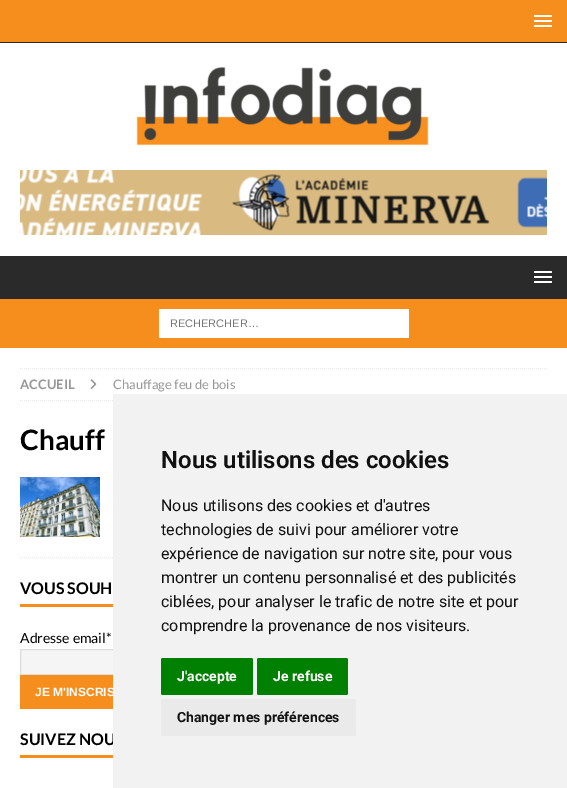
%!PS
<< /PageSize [567 788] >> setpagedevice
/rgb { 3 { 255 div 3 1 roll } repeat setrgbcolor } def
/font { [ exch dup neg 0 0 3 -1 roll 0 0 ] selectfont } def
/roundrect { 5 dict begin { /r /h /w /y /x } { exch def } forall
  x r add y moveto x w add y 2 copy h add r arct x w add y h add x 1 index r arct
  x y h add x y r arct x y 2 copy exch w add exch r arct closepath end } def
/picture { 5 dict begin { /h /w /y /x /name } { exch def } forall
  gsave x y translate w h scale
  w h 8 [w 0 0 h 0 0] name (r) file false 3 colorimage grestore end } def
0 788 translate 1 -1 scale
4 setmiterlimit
255 255 255 rgb
0 0 567 788 rectfill
246 142 30 rgb
0 0 567 42 rectfill
42 42 42 rgb
0 42 567 1 rectfill
255 255 255 rgb
534 15 18 2 1 roundrect fill
534 20 18 2 1 roundrect fill
534 25 18 2 1 roundrect fill
(img/1.rgb) 136 67 293 79 picture
(img/2.rgb) 20 170 527 65 picture
42 42 42 rgb
0 256 567 43 rectfill
255 255 255 rgb
534 271 18 2 1 roundrect fill
534 276 18 2 1 roundrect fill
534 281 18 2 1 roundrect fill
246 142 30 rgb
0 299 567 49 rectfill
255 255 255 rgb
159 309 250 29 rectfill
235 235 235 rgb
[1 1] 0 setdash
20 368.5 moveto 547 368.5 lineto stroke
20 400.5 moveto 547 400.5 lineto stroke
(img/3.rgb) 90 379 7 10 picture
20 557.5 moveto 547 557.5 lineto stroke
(img/4.rgb) 20 477 80 60 picture
246 142 30 rgb
20 604 93 3 rectfill
245 245 245 rgb
21 650 92 24 rectfill
221 221 221 rgb
[] 0 setdash
20.5 649.5 475 25 rectstroke
246 142 30 rgb
20 675 93 34 rectfill
20 755 93 3 rectfill
/LiberationSans-Regular 11 font
117 117 117 rgb
170 327 moveto (RECHERCHER…) show
/Lato-Bold 13 font
151 151 151 rgb
20 389 moveto (ACCUEIL) show
/Lato-Regular 13 font
113 389 moveto (Chauffage feu de bois) show
/Lato-Bold 28 font
0 0 0 rgb
20 450 moveto (Chauff) show
/Lato-Bold 16 font
20 594 moveto (VOUS SOUH) show
/Lato-Regular 14 font
20 643 moveto (Adresse email*) show
/LiberationSans-Bold 12 font
255 255 255 rgb
35 696 moveto (JE M'INSCRIS) show
/Lato-Bold 16 font
0 0 0 rgb
20 745 moveto (SUIVEZ NOU) show
242 242 242 rgb
113 394 454 394 rectfill
/Roboto-SemiBold 24 font
17 17 17 rgb
161 468 moveto (Nous utilisons des cookies) show
/Roboto-Regular 16 font
[
  [(Nous utilisons des cookies et d'autres) 161 511]
  [(technologies de suivi pour améliorer votre) 161 535]
  [(expérience de navigation sur notre site, pour vous) 161 559]
  [(montrer un contenu personnalisé et des publicités) 161 583]
  [(ciblées, pour analyser le trafic de notre site et pour) 161 607]
  [(comprendre la provenance de nos visiteurs.) 161 631]
] { aload pop moveto show } forall
0 128 0 rgb
161 658 92 37 2 roundrect fill
/Roboto-Bold 14 font
255 255 255 rgb
177 681 moveto (J'accepte) show
0 128 0 rgb
257 658 91 37 2 roundrect fill
255 255 255 rgb
273 681 moveto (Je refuse) show
234 234 234 rgb
161 699 195 37 2 roundrect fill
17 17 17 rgb
177 722 moveto (Changer mes préférences) show
showpage
